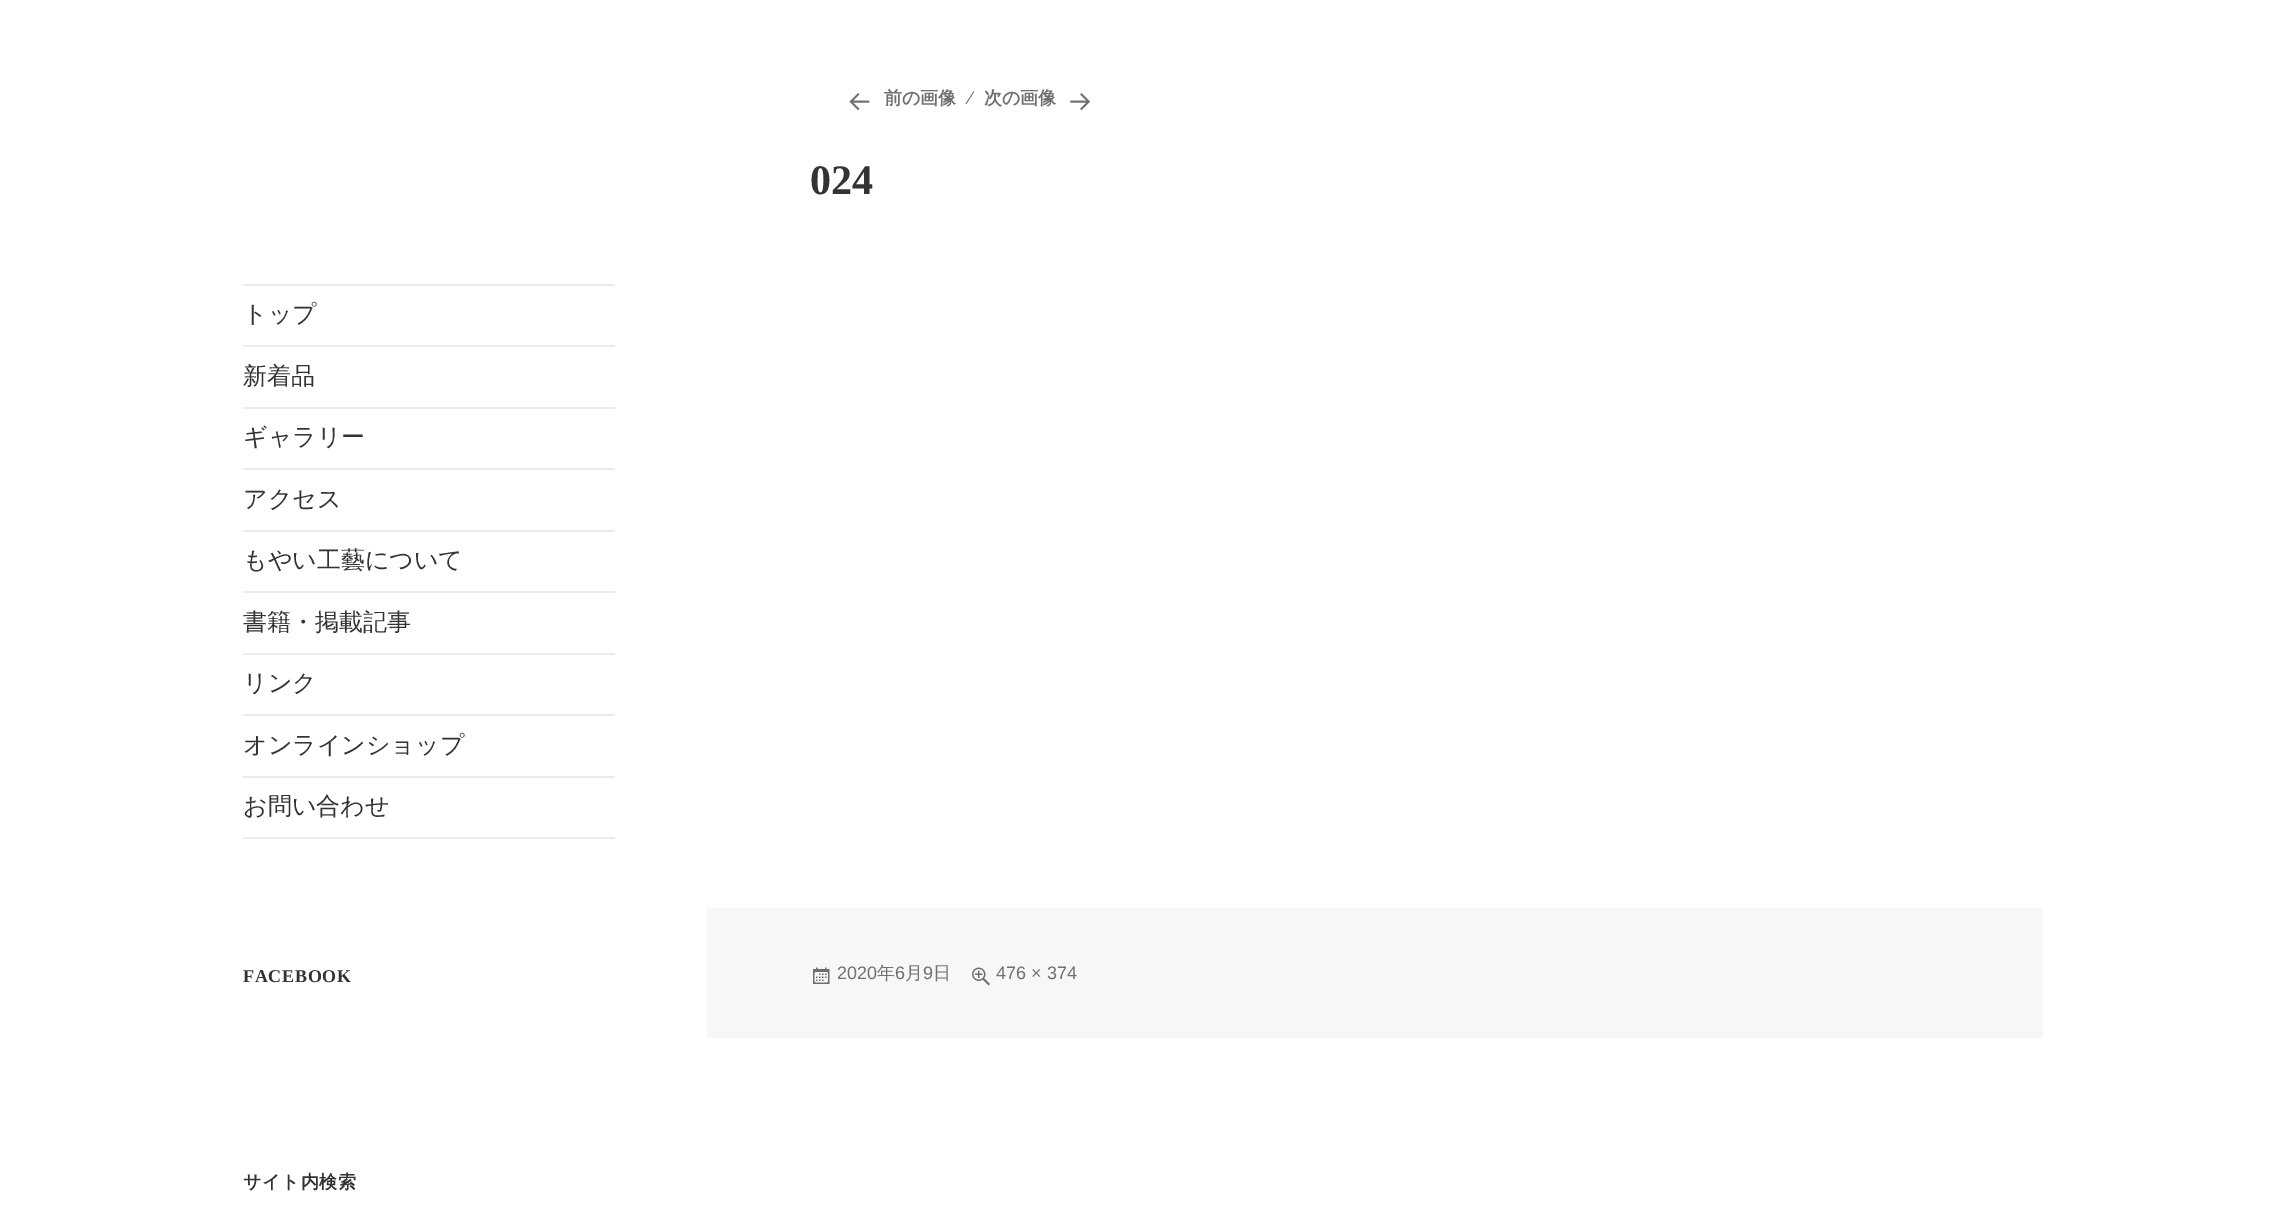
%!PS
<< /PageSize [2279 1219] >> setpagedevice
/rgb { 3 { 255 div 3 1 roll } repeat setrgbcolor } def
/font { [ exch dup neg 0 0 3 -1 roll 0 0 ] selectfont } def
/picture { 5 dict begin { /h /w /y /x /name } { exch def } forall
  gsave x y translate w h scale
  w h 8 [w 0 0 h 0 0] name (r) file false 3 colorimage grestore end } def
0 1219 translate 1 -1 scale
4 setmiterlimit
255 255 255 rgb
0 0 2279 1219 rectfill
[
  [243 284 372 2 235 235 235]
  [243 837 372 2 235 235 235]
  [243 345 372 2 235 235 235]
  [243 407 372 2 235 235 235]
  [243 468 372 2 235 235 235]
  [243 530 372 2 235 235 235]
  [243 591 372 2 235 235 235]
  [243 653 372 2 235 235 235]
  [243 714 372 2 235 235 235]
  [243 776 372 2 235 235 235]
] { aload pop rgb rectfill } forall
(img/1.rgb) 849 93 21 18 picture
(img/2.rgb) 1070 93 20 18 picture
247 247 247 rgb
707 908 1336 130 rectfill
(img/3.rgb) 813 967 17 17 picture
(img/4.rgb) 972 967 18 19 picture
/WenQuanYiZenHei-Medium 24 font
51 51 51 rgb
[
  [(トップ) 243 322]
  [(新着品) 243 384]
  [(ギャラリー) 243 445]
  [(アクセス) 243 507]
  [(もやい工藝について) 243 568]
  [(書籍・掲載記事) 243 630]
  [(リンク) 243 691]
  [(オンラインショップ) 243 753]
  [(お問い合わせ) 243 814]
] { aload pop moveto show } forall
/LiberationSerif-Bold 18 font
243 982 moveto 0.75 0 (FACEBOOK) ashow
/WenQuanYiZenHei-Bold 18 font
243 1188 moveto 0.75 0 (サイト内検索) ashow
112 112 112 rgb
884 104 moveto (前の画像) show
/LiberationSans-Regular 18 font
969 104 moveto (∕) show
/WenQuanYiZenHei-Bold 18 font
984 104 moveto (次の画像) show
/LiberationSerif-Bold 42 font
51 51 51 rgb
810 194 moveto (024) show
/LiberationSans-Regular 18 font
112 112 112 rgb
837 979 moveto (2020) show
/WenQuanYiZenHei-Medium 18 font
877 979 moveto (年) show
/LiberationSans-Regular 18 font
895 979 moveto (6) show
/WenQuanYiZenHei-Medium 18 font
905 979 moveto (月) show
/LiberationSans-Regular 18 font
923 979 moveto (9) show
/WenQuanYiZenHei-Medium 18 font
933 979 moveto (日) show
/LiberationSans-Regular 18 font
996 979 moveto (476 × 374) show
showpage
